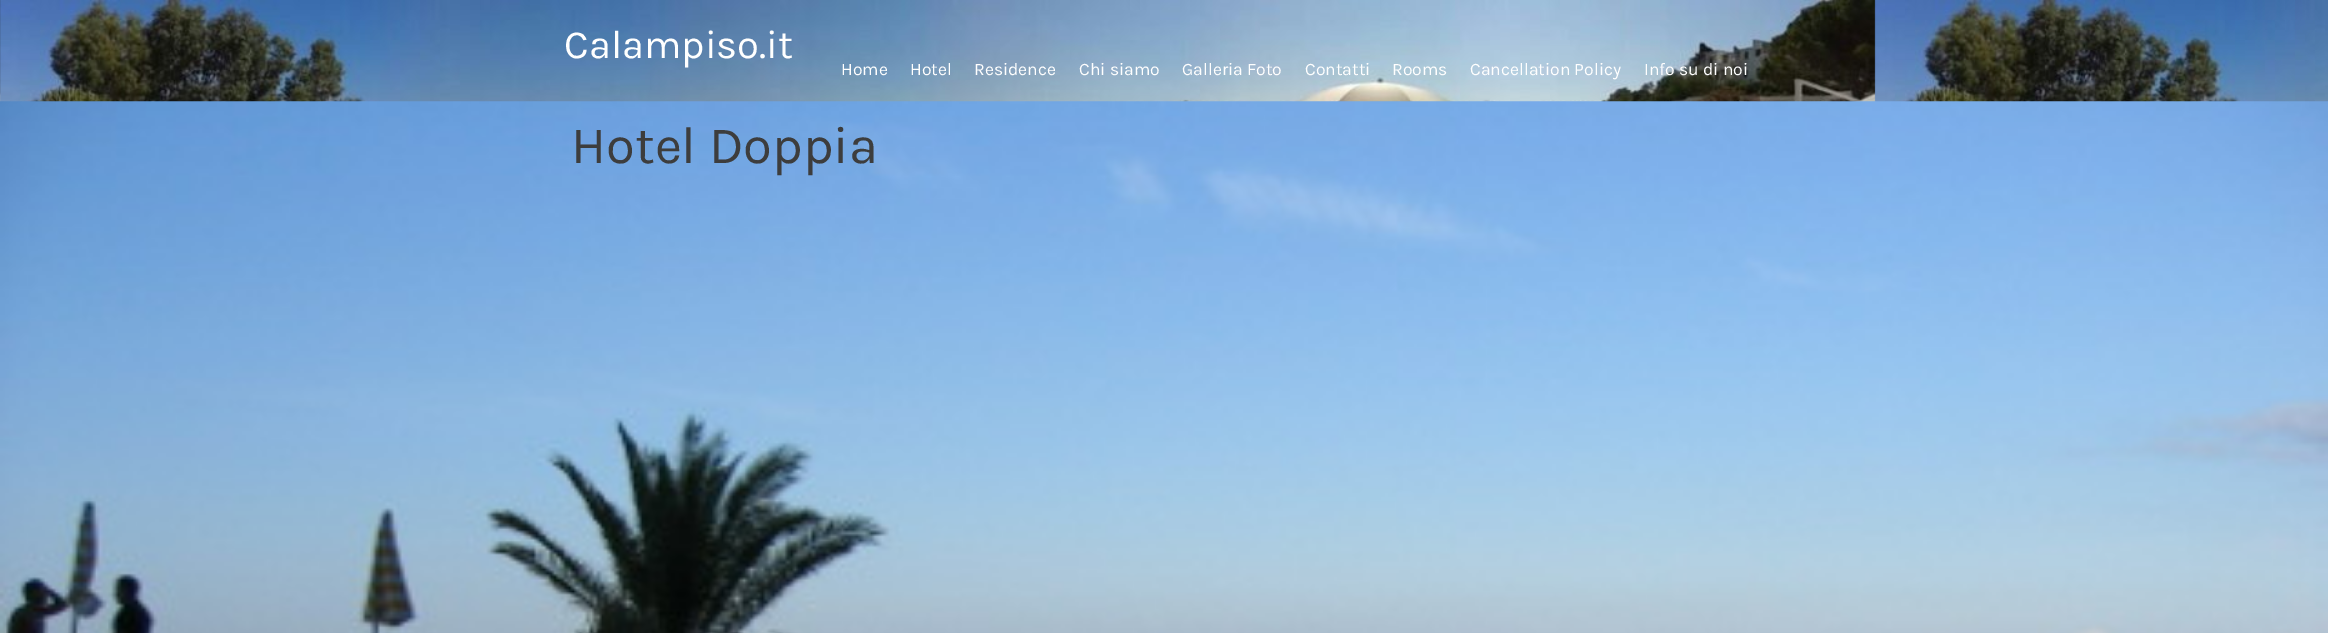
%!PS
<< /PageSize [2328 633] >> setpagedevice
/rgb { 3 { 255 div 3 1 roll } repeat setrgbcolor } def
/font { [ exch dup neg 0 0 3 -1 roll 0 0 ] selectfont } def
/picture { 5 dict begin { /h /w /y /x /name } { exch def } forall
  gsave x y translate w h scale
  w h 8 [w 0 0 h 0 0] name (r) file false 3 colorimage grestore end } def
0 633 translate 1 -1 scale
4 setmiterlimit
255 255 255 rgb
0 0 2328 633 rectfill
(img/1.rgb) 0 101 2328 532 picture
(img/2.rgb) 0 0 2328 102 picture
/Karla-Regular 40 font
564 58 moveto (Calampiso.it) show
/Karla-Regular 17.5 font
[
  [(Home) 841 75]
  [(Hotel) 910 75]
  [(Residence) 974 75]
  [(Chi siamo) 1079 75]
  [(Galleria Foto) 1182 75]
  [(Contatti) 1305 75]
  [(Rooms) 1392 75]
  [(Cancellation Policy) 1470 75]
  [(Info su di noi) 1644 75]
] { aload pop moveto show } forall
/Karla-Regular 52.5 font
61 61 61 rgb
571 163 moveto (Hotel Doppia) show
showpage
